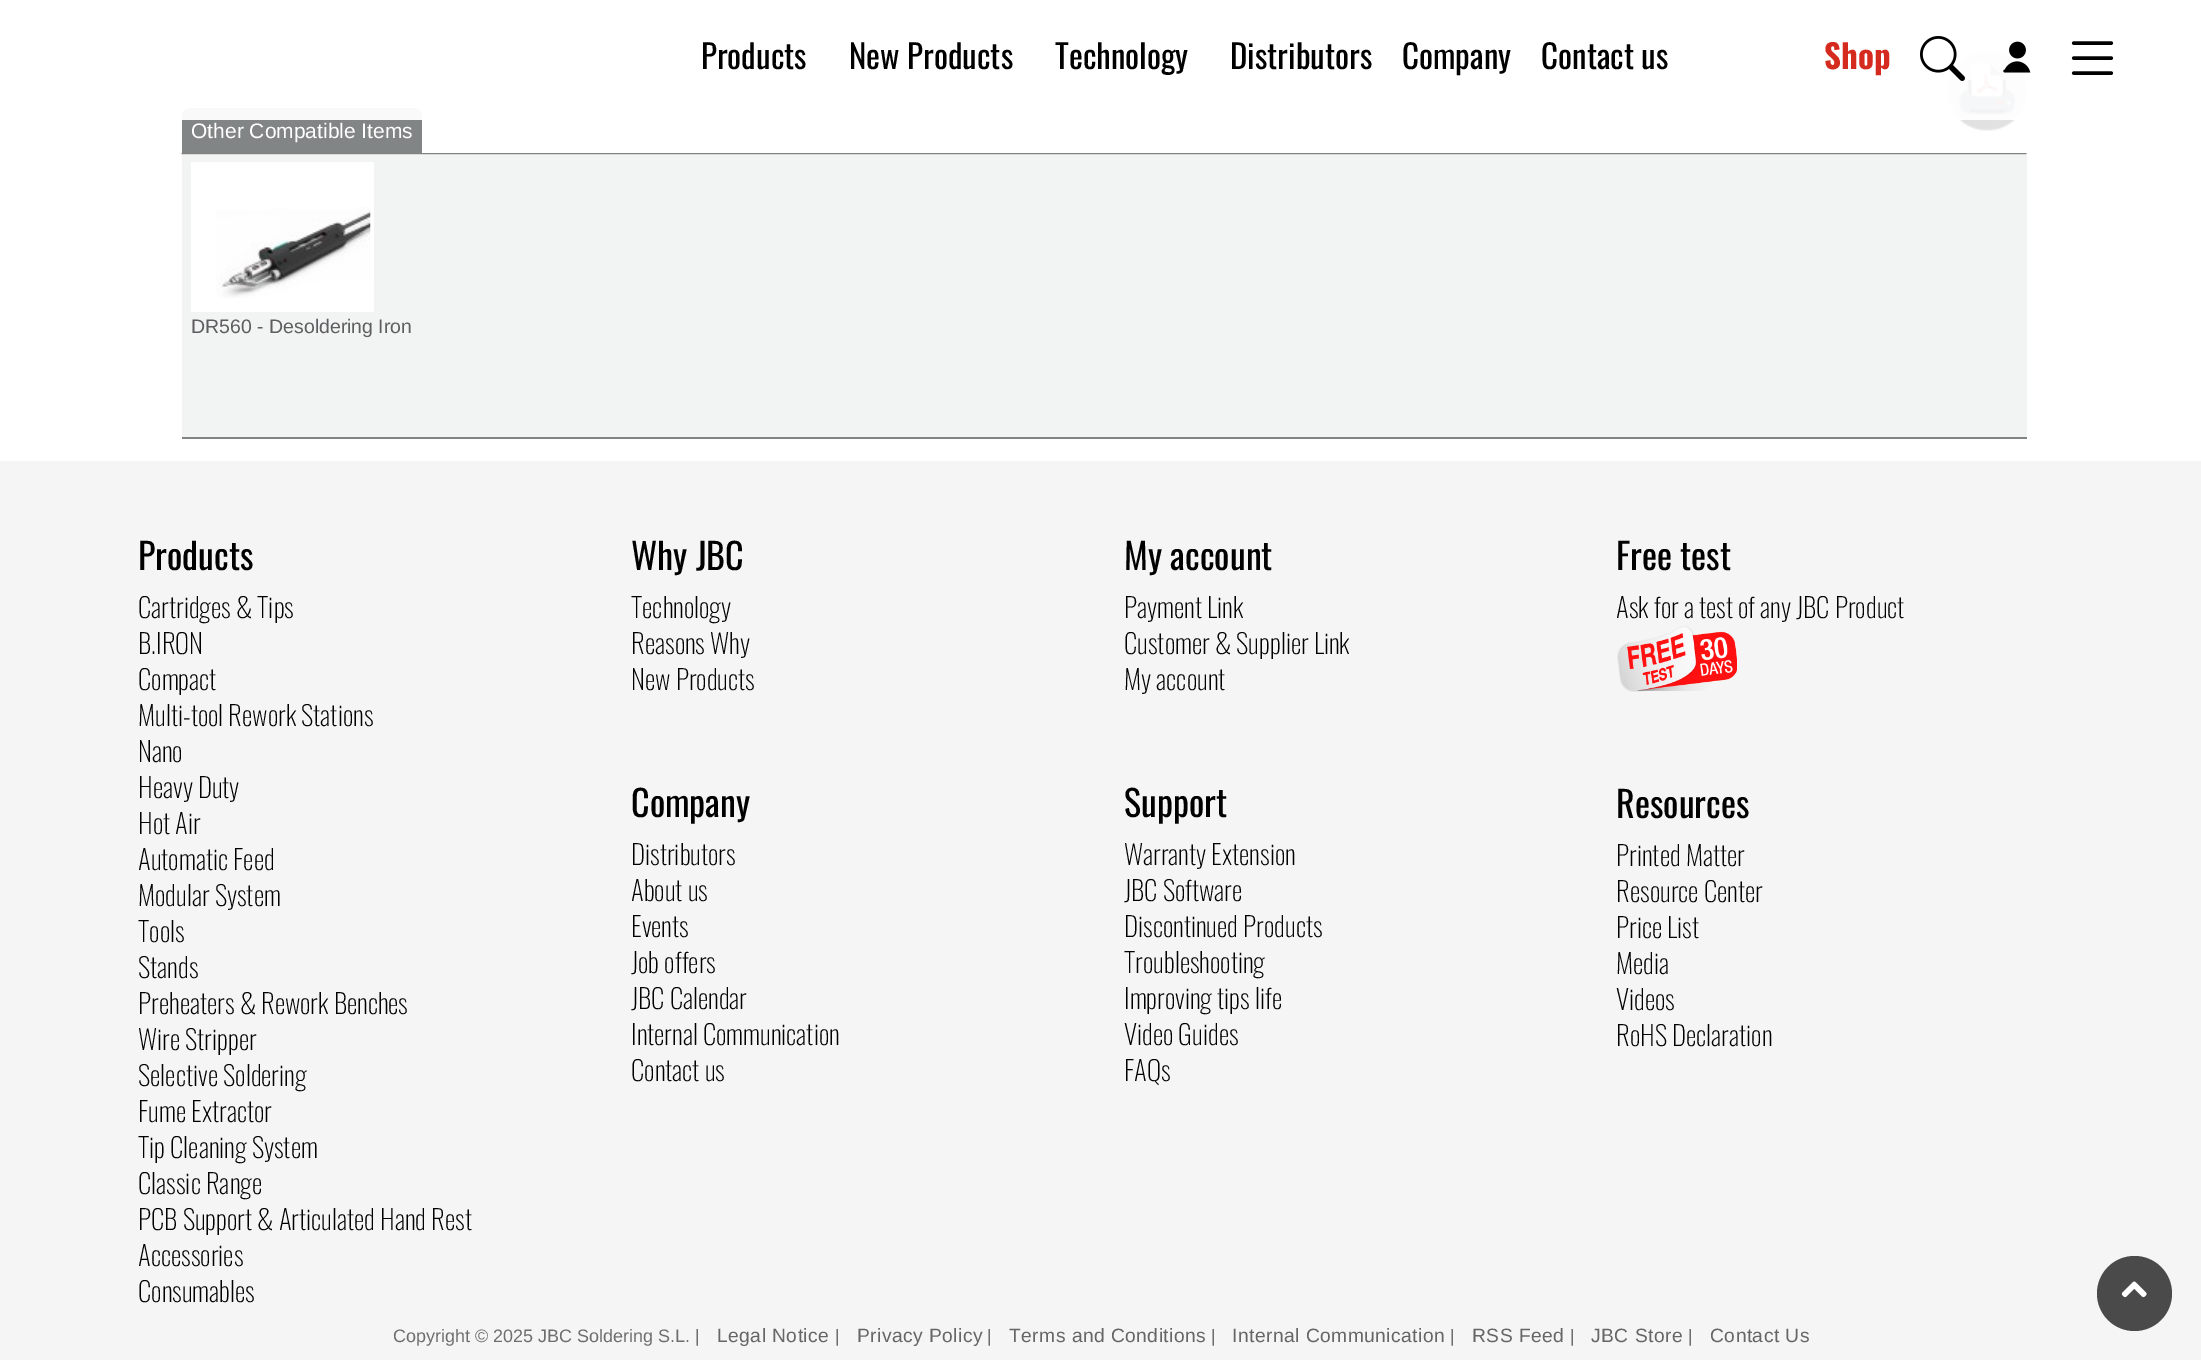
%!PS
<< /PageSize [2201 1360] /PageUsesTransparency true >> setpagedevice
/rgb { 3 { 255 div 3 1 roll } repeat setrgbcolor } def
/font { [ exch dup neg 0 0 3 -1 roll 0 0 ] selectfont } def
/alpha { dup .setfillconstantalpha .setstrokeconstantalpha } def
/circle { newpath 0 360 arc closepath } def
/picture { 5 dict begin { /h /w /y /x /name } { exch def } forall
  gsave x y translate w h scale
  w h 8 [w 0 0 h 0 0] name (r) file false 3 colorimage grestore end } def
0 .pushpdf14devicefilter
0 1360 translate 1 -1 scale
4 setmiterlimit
255 255 255 rgb
0 0 2201 1360 rectfill
(img/4.rgb) 1947 49 80 82 picture
130 133 133 rgb
190 108 moveto 414 108 lineto 418.5 108 422 111.5 422 116 curveto 422 153 lineto 182 153 lineto 182 116 lineto 182 111.5 185.5 108 190 108 curveto closepath fill
0.95 alpha
255 255 255 rgb
182 49 1845 71 rectfill
1 alpha
(img/1.rgb) 1920 36 45 45 picture
(img/2.rgb) 2003 41 28 32 picture
(img/3.rgb) 2071 41 43 34 picture
242 243 243 rgb
182 153 1845 284 rectfill
(img/5.rgb) 181 153 1846 2 picture
255 255 255 rgb
191 162 183 150 rectfill
(img/6.rgb) 216 207 155 91 picture
129 132 132 rgb
182 437 1845 2 rectfill
245 245 245 rgb
0 461 2201 899 rectfill
(img/7.rgb) 1617 626 120 66 picture
74 74 74 rgb
2134.5 1293.5 37.5 circle fill
(img/8.rgb) 2121 1281 26 17 picture
/Oswald-Regular 33 font
0 0 0 rgb
[
  [(Products) 701 69]
  [(New Products) 849 69]
  [(Technology) 1055 69]
  [(Distributors) 1230 69]
  [(Company) 1402 69]
  [(Contact us) 1541 69]
] { aload pop moveto show } forall
/Oswald-Bold 33 font
213 43 30 rgb
1824 69 moveto (Shop) show
/LiberationSans-Regular 21 font
255 255 255 rgb
191 138 moveto (Other Compatible Items) show
/LiberationSans-Regular 19.5 font
95 93 96 rgb
191 333 moveto (DR560 - Desoldering Iron) show
/Oswald-Regular 36 font
0 0 0 rgb
138 570 moveto (Products) show
/Oswald-ExtraLight 27 font
[
  [(Cartridges & Tips) 138 618]
  [(B.IRON) 138 654]
  [(Compact) 138 690]
  [(Multi-tool Rework Stations) 138 726]
  [(Nano) 138 762]
  [(Heavy Duty) 138 798]
  [(Hot Air) 138 834]
  [(Automatic Feed) 138 870]
  [(Modular System) 138 906]
  [(Tools) 138 942]
  [(Stands) 138 978]
  [(Preheaters & Rework Benches) 138 1014]
  [(Wire Stripper) 138 1050]
  [(Selective Soldering) 138 1086]
  [(Fume Extractor) 138 1122]
  [(Tip Cleaning System) 138 1158]
  [(Classic Range) 138 1194]
  [(PCB Support & Articulated Hand Rest) 138 1230]
  [(Accessories) 138 1266]
  [(Consumables) 138 1302]
] { aload pop moveto show } forall
/Oswald-Regular 36 font
631 570 moveto (Why JBC) show
/Oswald-ExtraLight 27 font
[
  [(Technology) 631 618]
  [(Reasons Why) 631 654]
  [(New Products) 631 690]
] { aload pop moveto show } forall
/Oswald-Regular 36 font
631 817 moveto (Company) show
/Oswald-ExtraLight 27 font
[
  [(Distributors) 631 865]
  [(About us) 631 901]
  [(Events) 631 937]
  [(Job offers) 631 973]
  [(JBC Calendar) 631 1009]
  [(Internal Communication) 631 1045]
  [(Contact us) 631 1081]
] { aload pop moveto show } forall
/Oswald-Regular 36 font
1124 570 moveto (My account) show
/Oswald-ExtraLight 27 font
[
  [(Payment Link) 1124 618]
  [(Customer & Supplier Link) 1124 654]
  [(My account) 1124 690]
] { aload pop moveto show } forall
/Oswald-Regular 36 font
1124 817 moveto (Support) show
/Oswald-ExtraLight 27 font
[
  [(Warranty Extension) 1124 865]
  [(JBC Software) 1124 901]
  [(Discontinued Products) 1124 937]
  [(Troubleshooting) 1124 973]
  [(Improving tips life) 1124 1009]
  [(Video Guides) 1124 1045]
  [(FAQs) 1124 1081]
] { aload pop moveto show } forall
/Oswald-Regular 36 font
1616 570 moveto (Free test) show
/Oswald-ExtraLight 27 font
1616 618 moveto (Ask for a test of any JBC Product) show
/Oswald-Regular 36 font
1616 818 moveto (Resources) show
/Oswald-ExtraLight 27 font
[
  [(Printed Matter) 1616 866]
  [(Resource Center) 1616 902]
  [(Price List) 1616 938]
  [(Media) 1616 974]
  [(Videos) 1616 1010]
  [(RoHS Declaration) 1616 1046]
] { aload pop moveto show } forall
/LiberationSans-Regular 18 font
110 110 112 rgb
393 1342 moveto (Copyright © 2025 JBC Soldering S.L. |) show
/LiberationSans-Regular 19.25 font
102 102 102 rgb
717 1342 moveto 0.45 0 (Legal Notice) ashow
/LiberationSans-Regular 18 font
110 110 112 rgb
835 1342 moveto (|) show
/LiberationSans-Regular 19.25 font
102 102 102 rgb
857 1342 moveto 0.45 0 (Privacy Policy) ashow
/LiberationSans-Regular 18 font
110 110 112 rgb
987 1342 moveto (|) show
/LiberationSans-Regular 19.25 font
102 102 102 rgb
1009 1342 moveto 0.45 0 (Terms and Conditions) ashow
/LiberationSans-Regular 18 font
110 110 112 rgb
1211 1342 moveto (|) show
/LiberationSans-Regular 19.25 font
102 102 102 rgb
1232 1342 moveto 0.45 0 (Internal Communication) ashow
/LiberationSans-Regular 18 font
110 110 112 rgb
1450 1342 moveto (|) show
/LiberationSans-Regular 19.25 font
102 102 102 rgb
1472 1342 moveto 0.45 0 (RSS Feed) ashow
/LiberationSans-Regular 18 font
110 110 112 rgb
1570 1342 moveto (|) show
/LiberationSans-Regular 19.25 font
102 102 102 rgb
1591 1342 moveto 0.45 0 (JBC Store) ashow
/LiberationSans-Regular 18 font
110 110 112 rgb
1688 1342 moveto (|) show
/LiberationSans-Regular 19.25 font
102 102 102 rgb
1710 1342 moveto 0.45 0 (Contact Us) ashow
.poppdf14devicefilter showpage
